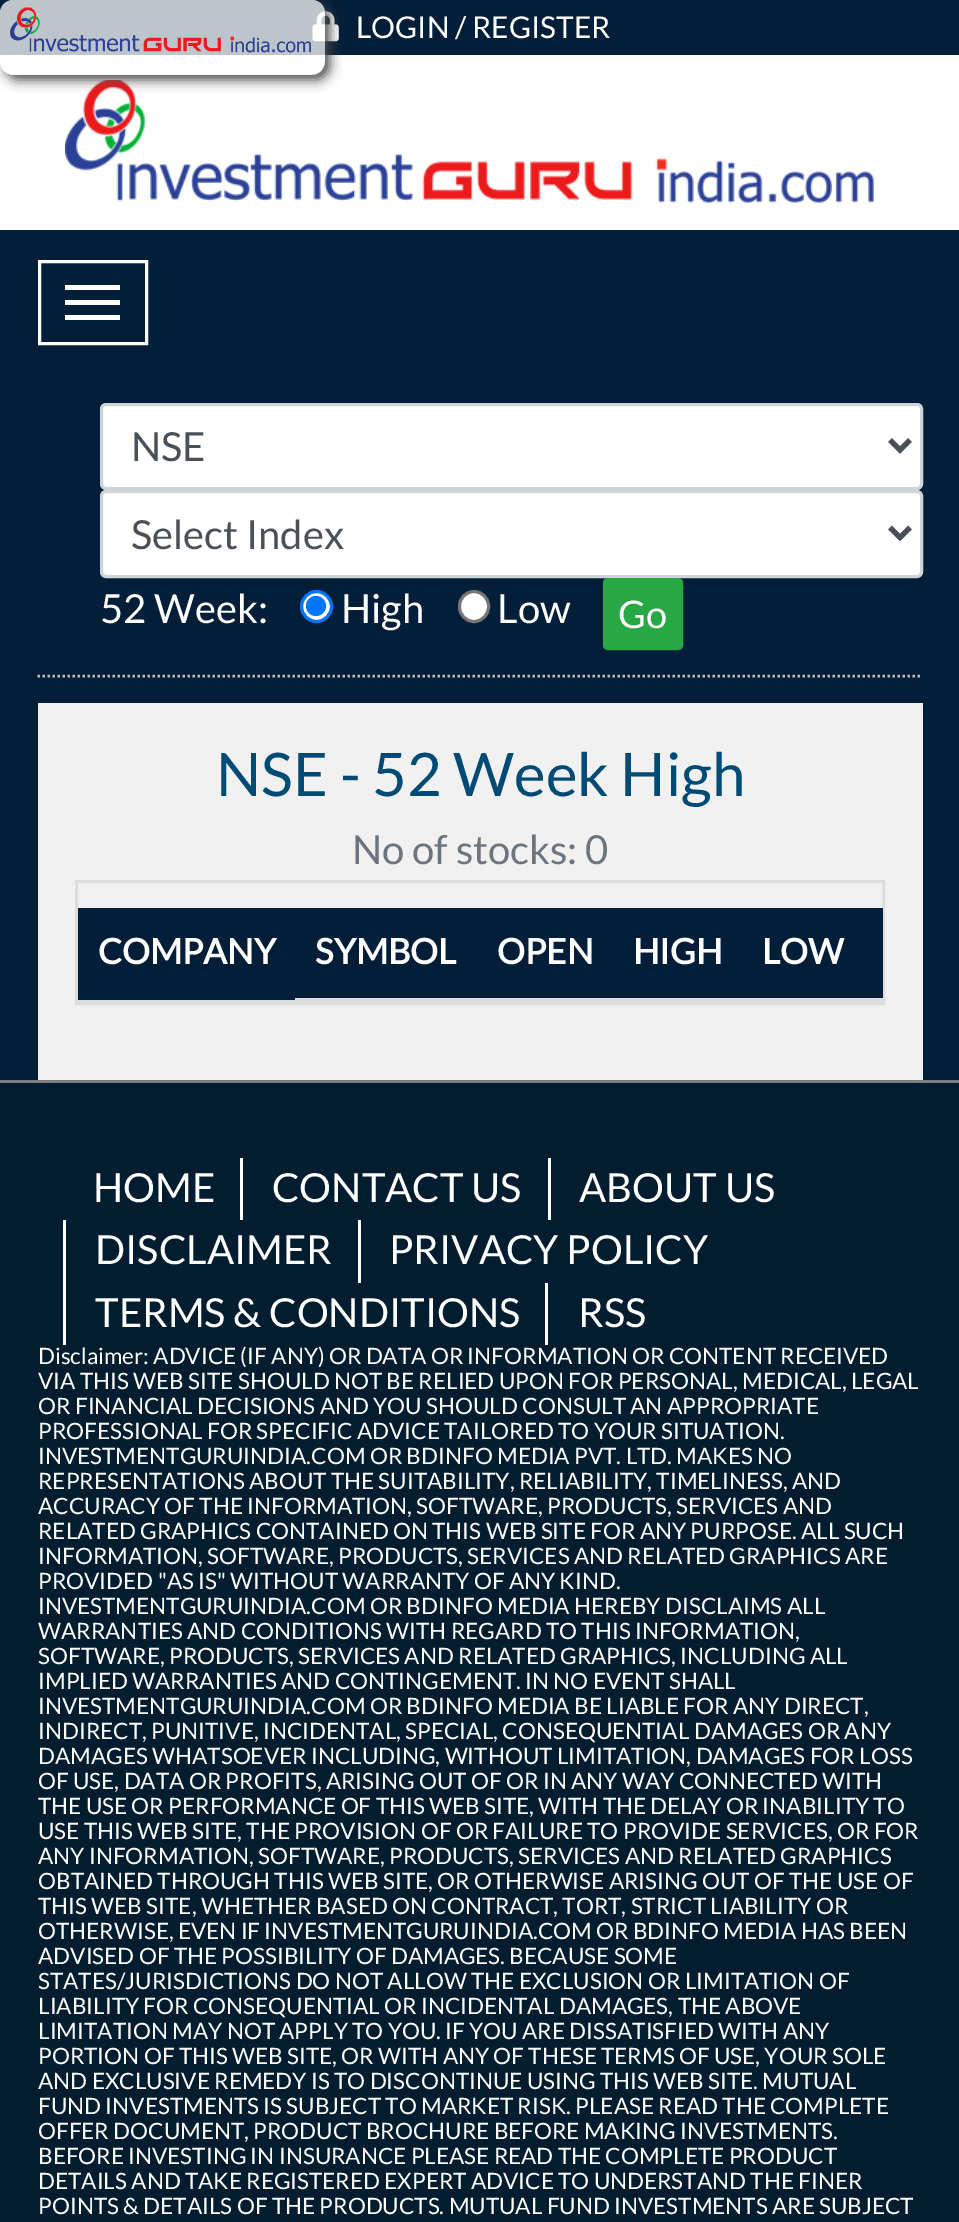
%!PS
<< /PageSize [959 2222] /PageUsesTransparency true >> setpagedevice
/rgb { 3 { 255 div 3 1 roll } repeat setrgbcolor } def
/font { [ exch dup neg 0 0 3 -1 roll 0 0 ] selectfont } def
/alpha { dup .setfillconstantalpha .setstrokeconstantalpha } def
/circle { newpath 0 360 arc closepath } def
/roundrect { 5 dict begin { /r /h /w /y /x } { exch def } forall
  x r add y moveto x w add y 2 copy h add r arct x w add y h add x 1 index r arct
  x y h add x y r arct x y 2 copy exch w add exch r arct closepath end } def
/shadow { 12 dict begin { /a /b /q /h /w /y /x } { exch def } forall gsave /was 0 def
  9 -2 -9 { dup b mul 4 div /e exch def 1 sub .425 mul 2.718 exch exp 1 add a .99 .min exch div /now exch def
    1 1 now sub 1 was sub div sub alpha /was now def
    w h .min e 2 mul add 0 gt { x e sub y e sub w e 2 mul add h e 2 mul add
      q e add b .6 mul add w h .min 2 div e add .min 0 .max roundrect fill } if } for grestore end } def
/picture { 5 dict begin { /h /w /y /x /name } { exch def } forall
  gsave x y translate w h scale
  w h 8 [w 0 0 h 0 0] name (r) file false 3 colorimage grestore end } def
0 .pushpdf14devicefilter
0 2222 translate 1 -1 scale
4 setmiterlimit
3 30 56 rgb
0 0 959 2222 rectfill
(img/2.rgb) 312 11 27 31 picture
255 255 255 rgb
0 55 959 175 rectfill
(img/3.rgb) 65 80 809 123 picture
gsave
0 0 moveto 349 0 lineto 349 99 lineto 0 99 lineto closepath 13 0 moveto 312 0 lineto 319 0 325 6 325 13 curveto 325 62 lineto 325 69 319 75 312 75 curveto 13 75 lineto 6 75 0 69 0 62 curveto 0 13 lineto 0 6 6 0 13 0 curveto closepath eoclip newpath
74 72 72 rgb
5 5 325 75 13 6 1 shadow
grestore
0.74 alpha
0 0 325 75 13 roundrect fill
1 alpha
(img/1.rgb) 10 7 301 46 picture
3 setlinewidth
39.5 261.5 107 82 rectstroke
[
  [65 285 55 5 255 255 255]
  [65 300 55 5 255 255 255]
  [65 315 55 5 255 255 255]
] { aload pop rgb rectfill } forall
101.5 404.5 820 84 4.5 roundrect gsave fill grestore
206 212 218 rgb
stroke
73 80 87 rgb
5 setlinewidth
890 440 moveto 900 450 lineto 910 440 lineto stroke
255 255 255 rgb
101.5 491.5 820 85 4.5 roundrect gsave fill grestore
206 212 218 rgb
3 setlinewidth
stroke
73 80 87 rgb
5 setlinewidth
890 527.5 moveto 900 537.5 lineto 910 527.5 lineto stroke
255 255 255 rgb
316.5 606.5 15 circle gsave fill grestore
0 117 255 rgb
3 setlinewidth
stroke
316 606 10 circle fill
255 255 255 rgb
459.5 591.5 29 30 14.5 roundrect gsave fill grestore
118 118 118 rgb
stroke
40 167 69 rgb
604.5 579.5 77 69 3.5 roundrect gsave fill grestore
stroke
193 185 185 rgb
2.5 setlinewidth
[2.5 2.5] 0 setdash
37.5 676 moveto 922.5 676 lineto stroke
241 241 241 rgb
38 703 885 377 rectfill
221 221 221 rgb
3 setlinewidth
[] 0 setdash
76.5 881.5 807 122 rectstroke
[
  [295 908 588 90 3 30 56]
  [78 998 805 4 221 221 221]
  [78 908 217 92 3 30 56]
  [0 1083 959 1139 3 29 48]
  [0 1080 959 3 128 128 128]
  [240 1158 3 62 255 255 255]
  [548 1158 3 62 255 255 255]
  [63 1220 3 125 255 255 255]
  [358 1220 3 63 255 255 255]
  [545 1283 3 62 255 255 255]
] { aload pop rgb rectfill } forall
/Lato-Regular 30 font
356 38 moveto (LOGIN / REGISTER) show
/Lato-Regular 40 font
73 80 87 rgb
131 461 moveto (NSE) show
131 549 moveto (Select Index) show
255 255 255 rgb
[
  [(52 Week:) 100 623]
  [(High) 341 623]
  [(Low) 497 623]
] { aload pop moveto show } forall
/Lato-Regular 38 font
618 628 moveto (Go) show
/Lato-Regular 60 font
0 74 118 rgb
216 796 moveto (NSE - 52 Week High) show
/Lato-Regular 40 font
108 117 125 rgb
352 864 moveto (No of stocks: 0) show
/Lato-Bold 35 font
255 255 255 rgb
[
  [(COMPANY) 98 964]
  [(SYMBOL) 315 964]
  [(OPEN) 497 964]
  [(HIGH) 633 964]
  [(LOW) 762 964]
] { aload pop moveto show } forall
/Lato-Regular 40 font
[
  [(HOME) 93 1202]
  [(CONTACT US) 272 1202]
  [(ABOUT US) 579 1202]
  [(DISCLAIMER) 95 1264]
  [(PRIVACY POLICY) 389 1264]
  [(TERMS & CONDITIONS) 95 1327]
  [(RSS) 578 1327]
] { aload pop moveto show } forall
/Lato-Regular 22.5 font
[
  [(Disclaimer: ADVICE \(IF ANY\) OR DATA OR INFORMATION OR CONTENT RECEIVED) 38 1364]
  [(VIA THIS WEB SITE SHOULD NOT BE RELIED UPON FOR PERSONAL, MEDICAL, LEGAL) 38 1389]
  [(OR FINANCIAL DECISIONS AND YOU SHOULD CONSULT AN APPROPRIATE) 38 1414]
  [(PROFESSIONAL FOR SPECIFIC ADVICE TAILORED TO YOUR SITUATION.) 38 1439]
  [(INVESTMENTGURUINDIA.COM OR BDINFO MEDIA PVT. LTD. MAKES NO) 38 1464]
  [(REPRESENTATIONS ABOUT THE SUITABILITY, RELIABILITY, TIMELINESS, AND) 38 1489]
  [(ACCURACY OF THE INFORMATION, SOFTWARE, PRODUCTS, SERVICES AND) 38 1514]
  [(RELATED GRAPHICS CONTAINED ON THIS WEB SITE FOR ANY PURPOSE. ALL SUCH) 38 1539]
  [(INFORMATION, SOFTWARE, PRODUCTS, SERVICES AND RELATED GRAPHICS ARE) 38 1564]
  [(PROVIDED "AS IS" WITHOUT WARRANTY OF ANY KIND.) 38 1589]
  [(INVESTMENTGURUINDIA.COM OR BDINFO MEDIA HEREBY DISCLAIMS ALL) 38 1614]
  [(WARRANTIES AND CONDITIONS WITH REGARD TO THIS INFORMATION,) 38 1639]
  [(SOFTWARE, PRODUCTS, SERVICES AND RELATED GRAPHICS, INCLUDING ALL) 38 1664]
  [(IMPLIED WARRANTIES AND CONTINGEMENT. IN NO EVENT SHALL) 38 1689]
  [(INVESTMENTGURUINDIA.COM OR BDINFO MEDIA BE LIABLE FOR ANY DIRECT,) 38 1714]
  [(INDIRECT, PUNITIVE, INCIDENTAL, SPECIAL, CONSEQUENTIAL DAMAGES OR ANY) 38 1739]
  [(DAMAGES WHATSOEVER INCLUDING, WITHOUT LIMITATION, DAMAGES FOR LOSS) 38 1764]
  [(OF USE, DATA OR PROFITS, ARISING OUT OF OR IN ANY WAY CONNECTED WITH) 38 1789]
  [(THE USE OR PERFORMANCE OF THIS WEB SITE, WITH THE DELAY OR INABILITY TO) 38 1814]
  [(USE THIS WEB SITE, THE PROVISION OF OR FAILURE TO PROVIDE SERVICES, OR FOR) 38 1839]
  [(ANY INFORMATION, SOFTWARE, PRODUCTS, SERVICES AND RELATED GRAPHICS) 38 1864]
  [(OBTAINED THROUGH THIS WEB SITE, OR OTHERWISE ARISING OUT OF THE USE OF) 38 1889]
  [(THIS WEB SITE, WHETHER BASED ON CONTRACT, TORT, STRICT LIABILITY OR) 38 1914]
  [(OTHERWISE, EVEN IF INVESTMENTGURUINDIA.COM OR BDINFO MEDIA HAS BEEN) 38 1939]
  [(ADVISED OF THE POSSIBILITY OF DAMAGES. BECAUSE SOME) 38 1964]
  [(STATES/JURISDICTIONS DO NOT ALLOW THE EXCLUSION OR LIMITATION OF) 38 1989]
  [(LIABILITY FOR CONSEQUENTIAL OR INCIDENTAL DAMAGES, THE ABOVE) 38 2014]
  [(LIMITATION MAY NOT APPLY TO YOU. IF YOU ARE DISSATISFIED WITH ANY) 38 2039]
  [(PORTION OF THIS WEB SITE, OR WITH ANY OF THESE TERMS OF USE, YOUR SOLE) 38 2064]
  [(AND EXCLUSIVE REMEDY IS TO DISCONTINUE USING THIS WEB SITE. MUTUAL) 38 2089]
  [(FUND INVESTMENTS IS SUBJECT TO MARKET RISK. PLEASE READ THE COMPLETE) 38 2114]
  [(OFFER DOCUMENT, PRODUCT BROCHURE BEFORE MAKING INVESTMENTS.) 38 2139]
  [(BEFORE INVESTING IN INSURANCE PLEASE READ THE COMPLETE PRODUCT) 38 2164]
  [(DETAILS AND TAKE REGISTERED EXPERT ADVICE TO UNDERSTAND THE FINER) 38 2189]
  [(POINTS & DETAILS OF THE PRODUCTS. MUTUAL FUND INVESTMENTS ARE SUBJECT) 38 2214]
] { aload pop moveto show } forall
.poppdf14devicefilter showpage
